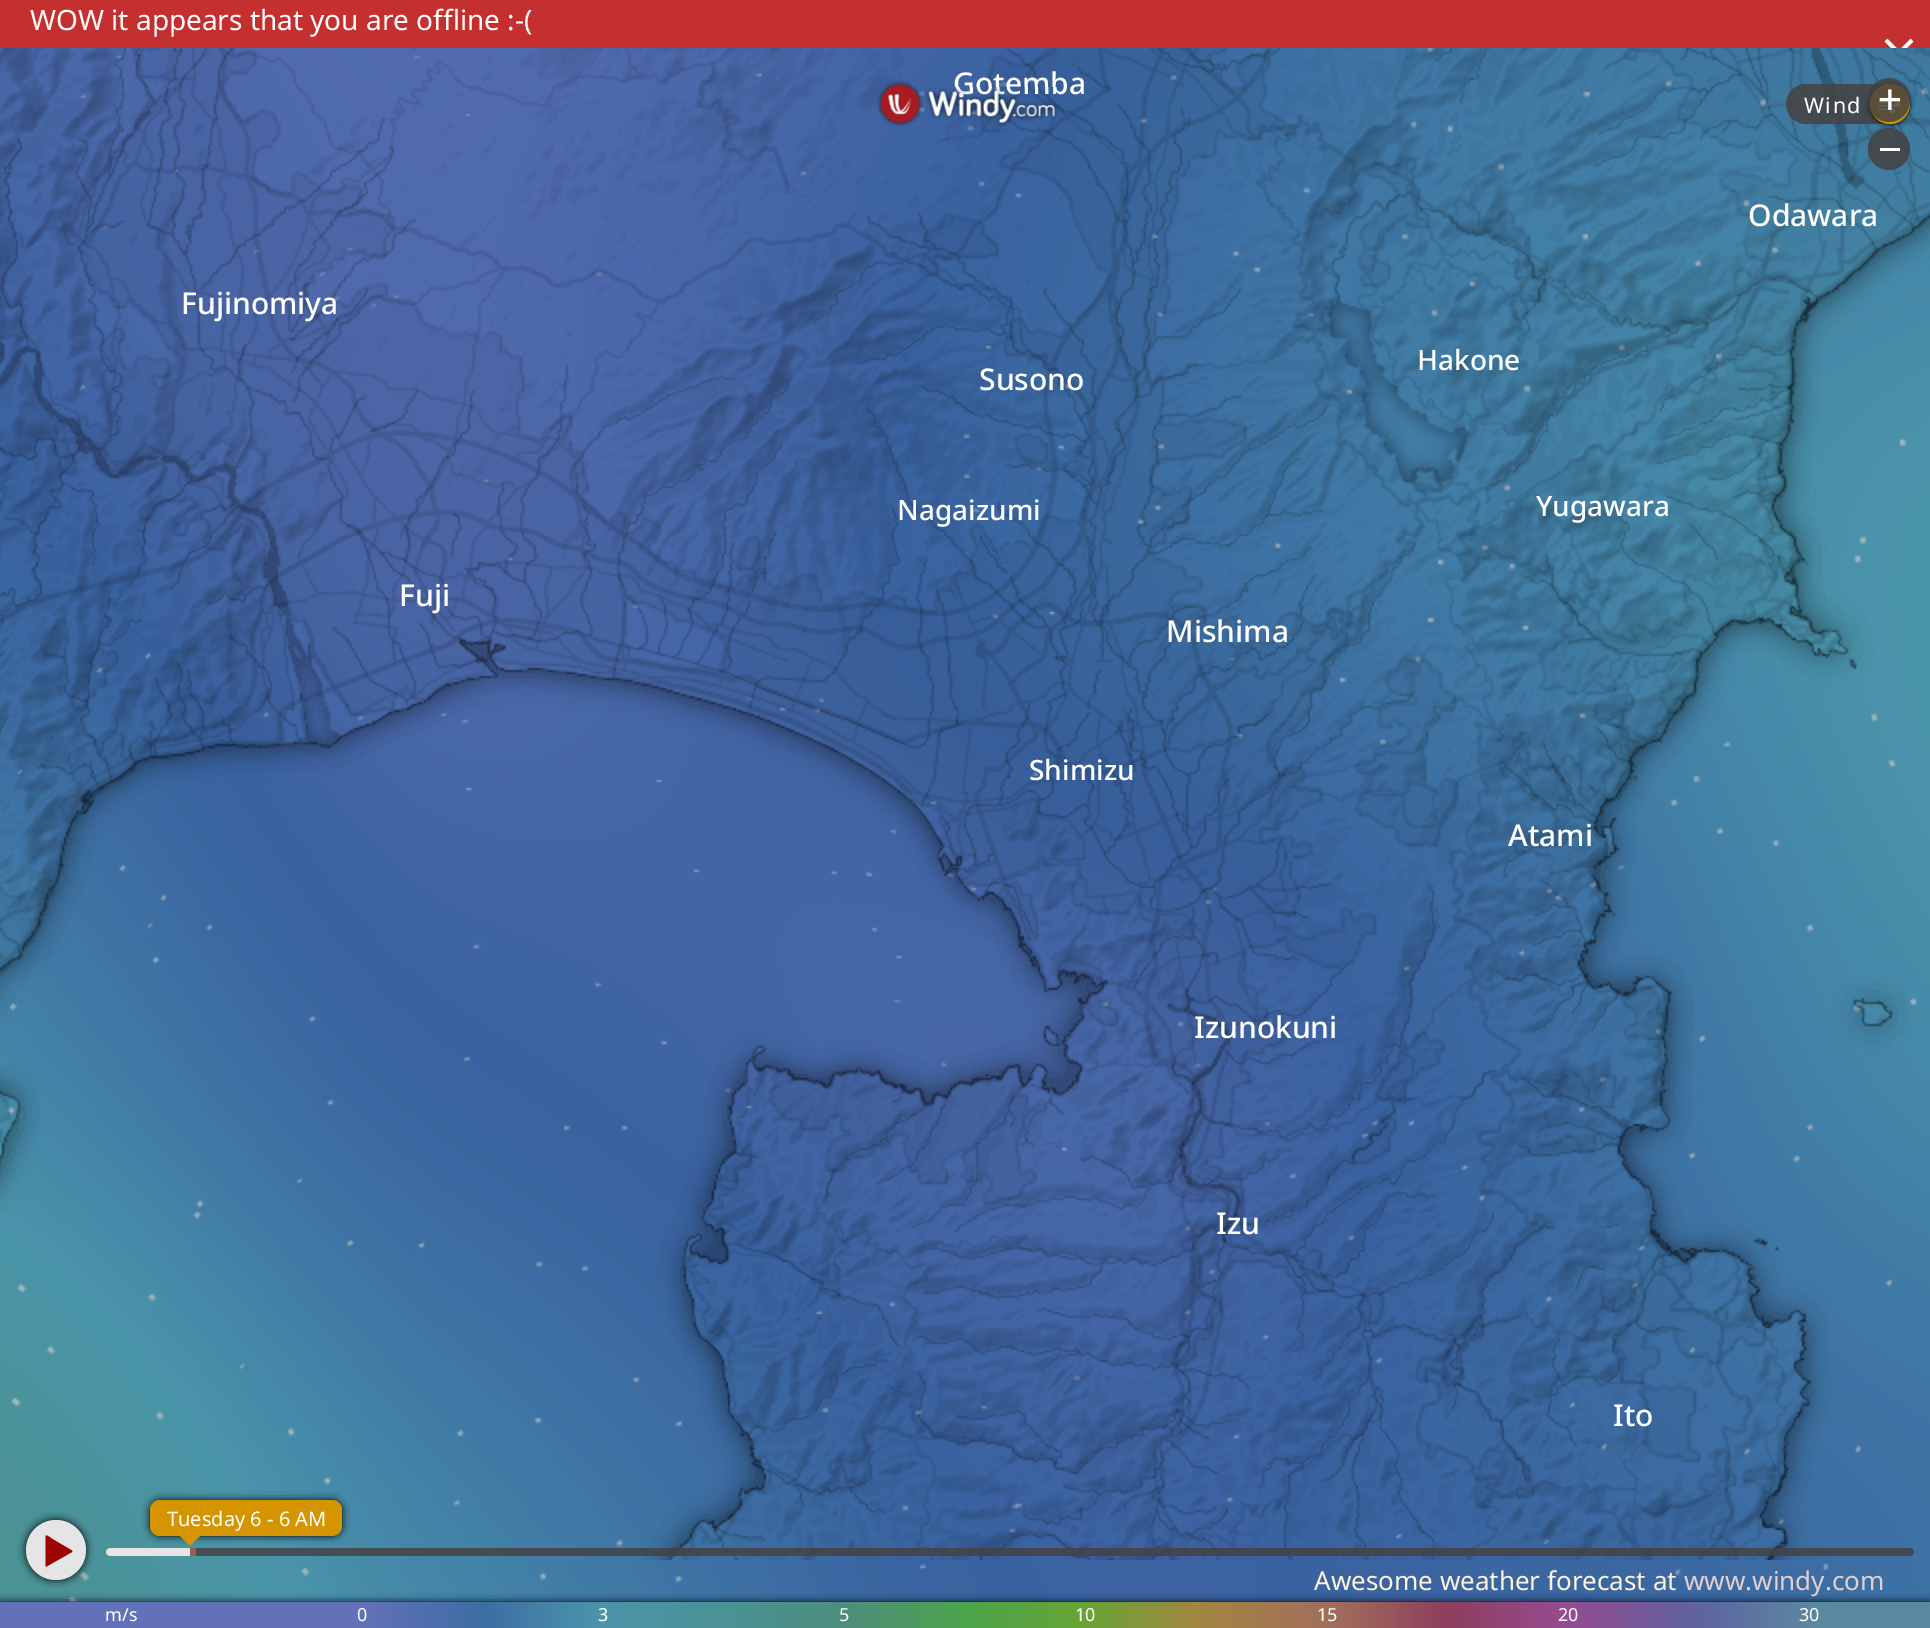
%!PS
<< /PageSize [1930 1628] /PageUsesTransparency true >> setpagedevice
/rgb { 3 { 255 div 3 1 roll } repeat setrgbcolor } def
/font { [ exch dup neg 0 0 3 -1 roll 0 0 ] selectfont } def
/alpha { dup .setfillconstantalpha .setstrokeconstantalpha } def
/circle { newpath 0 360 arc closepath } def
/roundrect { 5 dict begin { /r /h /w /y /x } { exch def } forall
  x r add y moveto x w add y 2 copy h add r arct x w add y h add x 1 index r arct
  x y h add x y r arct x y 2 copy exch w add exch r arct closepath end } def
/shadow { 12 dict begin { /a /b /q /h /w /y /x } { exch def } forall gsave /was 0 def
  9 -2 -9 { dup b mul 4 div /e exch def 1 sub .425 mul 2.718 exch exp 1 add a .99 .min exch div /now exch def
    1 1 now sub 1 was sub div sub alpha /was now def
    w h .min e 2 mul add 0 gt { x e sub y e sub w e 2 mul add h e 2 mul add
      q e add b .6 mul add w h .min 2 div e add .min 0 .max roundrect fill } if } for grestore end } def
/picture { 5 dict begin { /h /w /y /x /name } { exch def } forall
  gsave x y translate w h scale
  w h 8 [w 0 0 h 0 0] name (r) file false 3 colorimage grestore end } def
0 .pushpdf14devicefilter
0 1628 translate 1 -1 scale
4 setmiterlimit
255 255 255 rgb
0 0 1930 1628 rectfill
196 47 47 rgb
0 0 1930 48 rectfill
(img/1.rgb) 1884 38 30 10 picture
(img/2.rgb) 0 48 478 488 picture
(img/3.rgb) 478 48 512 488 picture
(img/4.rgb) 990 48 512 488 picture
(img/5.rgb) 1502 48 428 488 picture
(img/6.rgb) 0 536 478 512 picture
(img/7.rgb) 478 536 512 512 picture
(img/8.rgb) 990 536 512 512 picture
(img/9.rgb) 1502 536 428 512 picture
(img/10.rgb) 0 1048 478 512 picture
(img/11.rgb) 478 1048 512 512 picture
(img/12.rgb) 990 1048 512 512 picture
(img/13.rgb) 1502 1048 428 512 picture
(img/14.rgb) 0 1560 478 42 picture
(img/15.rgb) 478 1560 512 42 picture
(img/16.rgb) 990 1560 512 42 picture
(img/17.rgb) 1502 1560 428 42 picture
(img/30.rgb) 6 48 1923 1554 picture
(img/18.rgb) 0 48 478 488 picture
(img/19.rgb) 478 48 512 488 picture
(img/20.rgb) 990 48 512 488 picture
(img/21.rgb) 1502 48 428 488 picture
(img/22.rgb) 0 536 478 487 picture
(img/23.rgb) 478 536 512 512 picture
(img/24.rgb) 990 536 512 512 picture
(img/25.rgb) 1502 536 410 512 picture
(img/26.rgb) 0 1064 40 147 picture
(img/27.rgb) 643 1048 347 512 picture
(img/28.rgb) 990 1048 512 512 picture
(img/29.rgb) 1502 1048 378 512 picture
0.84 alpha
68 65 65 rgb
1786 84 124 40 20 roundrect fill
1 alpha
0 0 0 rgb
1870 84 40 40 20 2.5 1 shadow
212 149 0 rgb
1890 104 20 circle fill
(img/34.rgb) 1878 101 22 13 picture
0.84 alpha
68 65 65 rgb
1868 78 42 44 21 roundrect fill
1 alpha
(img/31.rgb) 1879 89 22 21 picture
0.84 alpha
1889 149 21 circle fill
1 alpha
255 255 255 rgb
1880 148 20 3 rectfill
(img/32.rgb) 876 80 48 47 picture
0 0 0 rgb
26 1520 60 60 30 4 1 shadow
229 229 229 rgb
56 1550 30 circle fill
157 3 0 rgb
72.5 1551 moveto 72 1550.5 lineto 51.5 1538.5 lineto 49.5 1537 46.5 1534.5 45.5 1536 curveto 45.5 1565.5 lineto 45.5 1566 46 1566.5 46.5 1566.5 curveto 72 1552 lineto closepath fill
0 0 0 rgb
150 1500 192 36 10 4 1 shadow
212 149 0 rgb
150 1500 192 36 10 roundrect fill
180 1536 moveto 200 1536 lineto 190 1546 lineto closepath fill
0.84 alpha
68 65 65 rgb
106 1548 1808 8 4 roundrect fill
1 alpha
229 229 229 rgb
110 1548 moveto 190 1548 lineto 190 1556 lineto 110 1556 lineto 108 1556 106 1554 106 1552 curveto 106 1550 108 1548 110 1548 curveto closepath fill
148 96 81 rgb
190 1548 6 8 rectfill
0 0 0 rgb
0 1602 1930 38 0 4 1 shadow
gsave 0 1602 moveto 1930 1602 lineto 1930 1628 lineto 0 1628 lineto closepath clip newpath
<< /ShadingType 2 /ColorSpace /DeviceRGB /Coords [0 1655 1930 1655] /Extend [true true] /Function << /FunctionType 3 /Domain [0 1] /Functions [<< /FunctionType 2 /Domain [0 1] /C0 [0.384 0.443 0.722] /C1 [0.384 0.443 0.722] /N 1 >> << /FunctionType 2 /Domain [0 1] /C0 [0.384 0.443 0.722] /C1 [0.239 0.431 0.639] /N 1 >> << /FunctionType 2 /Domain [0 1] /C0 [0.239 0.431 0.639] /C1 [0.29 0.58 0.667] /N 1 >> << /FunctionType 2 /Domain [0 1] /C0 [0.29 0.58 0.667] /C1 [0.29 0.573 0.58] /N 1 >> << /FunctionType 2 /Domain [0 1] /C0 [0.29 0.573 0.58] /C1 [0.302 0.557 0.486] /N 1 >> << /FunctionType 2 /Domain [0 1] /C0 [0.302 0.557 0.486] /C1 [0.298 0.643 0.298] /N 1 >> << /FunctionType 2 /Domain [0 1] /C0 [0.298 0.643 0.298] /C1 [0.404 0.643 0.212] /N 1 >> << /FunctionType 2 /Domain [0 1] /C0 [0.404 0.643 0.212] /C1 [0.635 0.529 0.251] /N 1 >> << /FunctionType 2 /Domain [0 1] /C0 [0.635 0.529 0.251] /C1 [0.635 0.427 0.361] /N 1 >> << /FunctionType 2 /Domain [0 1] /C0 [0.635 0.427 0.361] /C1 [0.553 0.247 0.361] /N 1 >> << /FunctionType 2 /Domain [0 1] /C0 [0.553 0.247 0.361] /C1 [0.592 0.294 0.569] /N 1 >> << /FunctionType 2 /Domain [0 1] /C0 [0.592 0.294 0.569] /C1 [0.373 0.392 0.627] /N 1 >> << /FunctionType 2 /Domain [0 1] /C0 [0.373 0.392 0.627] /C1 [0.357 0.533 0.631] /N 1 >> << /FunctionType 2 /Domain [0 1] /C0 [0.357 0.533 0.631] /C1 [0.357 0.533 0.631] /N 1 >>] /Bounds [0.19 0.25 0.31 0.38 0.44 0.5 0.56 0.62 0.69 0.75 0.81 0.88 0.94] /Encode [0 1 0 1 0 1 0 1 0 1 0 1 0 1 0 1 0 1 0 1 0 1 0 1 0 1 0 1] >> >> shfill grestore
/NotoSans-Regular 28 font
255 255 255 rgb
30 30 moveto (WOW it appears that you are offline :-\() show
/NotoSans-Medium 30 font
181 314 moveto (Fujinomiya) show
953 94 moveto (Gotemba) show
/NotoSans-Medium 28 font
1417 370 moveto (Hakone) show
/NotoSans-Medium 30 font
979 390 moveto (Susono) show
1748 226 moveto (Odawara) show
/NotoSans-Medium 28 font
1536 516 moveto (Yugawara) show
897 520 moveto (Nagaizumi) show
/NotoSans-Medium 30 font
399 606 moveto (Fuji) show
1166 642 moveto (Mishima) show
/NotoSans-Medium 28 font
1029 780 moveto (Shimizu) show
/NotoSans-Medium 30 font
[
  [(Izunokuni) 1194 1038]
  [(Atami) 1508 846]
  [(Izu) 1216 1234]
  [(Ito) 1613 1426]
] { aload pop moveto show } forall
(img/33.rgb) 925 87 134 40 picture
/NotoSans-Regular 21.5 font
1804 113 moveto 1.5 0 (Wind) ashow
/NotoSans-Regular 20 font
167 1526 moveto (Tuesday 6 - 6 AM) show
/NotoSans-Regular 26 font
255 243 225 rgb
1314 1590 moveto (Awesome weather forecast at) show
230 206 206 rgb
1684 1590 moveto (www.windy.com) show
/NotoSans-Regular 18 font
255 255 255 rgb
[
  [(m/s) 105 1621]
  [(0) 357 1621]
  [(3) 598 1621]
  [(5) 839 1621]
  [(10) 1075 1621]
  [(15) 1317 1621]
  [(20) 1558 1621]
  [(30) 1799 1621]
] { aload pop moveto show } forall
.poppdf14devicefilter showpage
